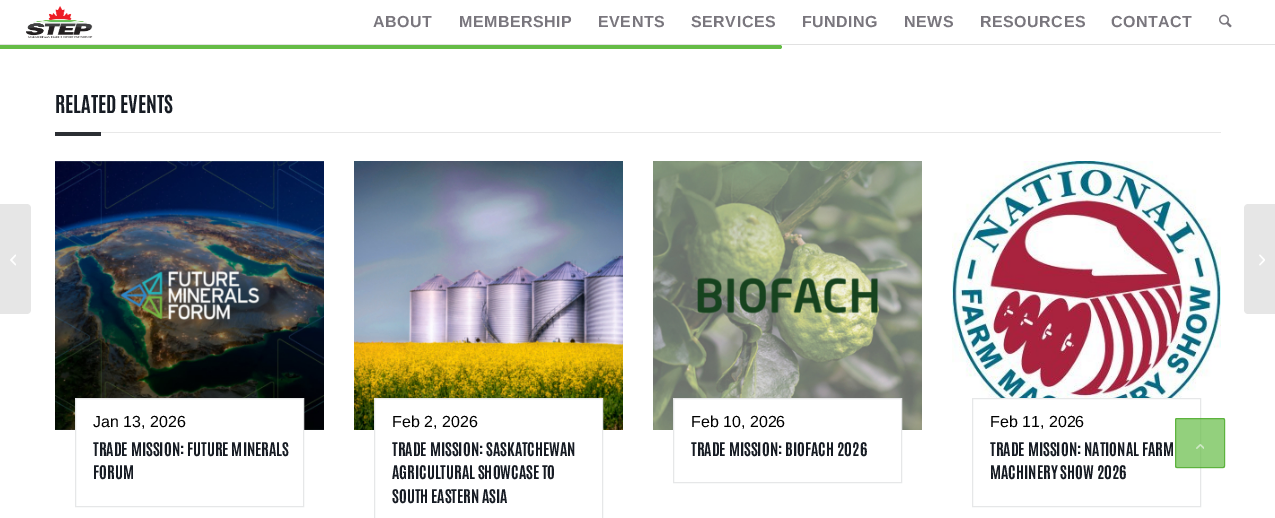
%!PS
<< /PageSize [1275 518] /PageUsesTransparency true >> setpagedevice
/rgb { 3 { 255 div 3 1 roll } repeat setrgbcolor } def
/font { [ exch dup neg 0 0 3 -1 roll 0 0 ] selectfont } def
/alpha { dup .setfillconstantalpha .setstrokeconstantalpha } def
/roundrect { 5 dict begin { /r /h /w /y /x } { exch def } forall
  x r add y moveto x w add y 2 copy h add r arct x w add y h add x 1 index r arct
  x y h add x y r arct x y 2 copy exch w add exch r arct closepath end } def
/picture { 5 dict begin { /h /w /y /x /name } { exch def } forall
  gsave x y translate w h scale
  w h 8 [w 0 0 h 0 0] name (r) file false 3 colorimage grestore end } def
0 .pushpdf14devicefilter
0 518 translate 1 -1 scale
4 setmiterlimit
255 255 255 rgb
0 0 1275 518 rectfill
225 225 225 rgb
0 44 1275 1 rectfill
(img/1.rgb) 26 6 67 32 picture
(img/2.rgb) 1219 14 13 14 picture
101 188 70 rgb
0 45 moveto 780 45 lineto 781 45 782 46 782 47 curveto 782 48 781 49 780 49 curveto 0 49 lineto closepath fill
230 230 230 rgb
0 204 moveto 27 204 lineto 29 204 31 206 31 208 curveto 31 310 lineto 31 312 29 314 27 314 curveto 0 314 lineto closepath fill
(img/3.rgb) 10 254 6 12 picture
232 232 232 rgb
101 132 1120 1 rectfill
44 47 52 rgb
55 132 46 4 rectfill
(img/4.rgb) 55 161 269 269 picture
255 255 255 rgb
76 399 227 31 rectfill
230 231 232 rgb
75.5 398.5 228 108 rectstroke
(img/5.rgb) 354 161 269 269 picture
255 255 255 rgb
375 399 227 31 rectfill
230 231 232 rgb
374.5 398.5 228 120 rectstroke
(img/6.rgb) 653 161 269 269 picture
255 255 255 rgb
674 399 227 31 rectfill
230 231 232 rgb
673.5 398.5 228 84 rectstroke
(img/7.rgb) 952 161 269 269 picture
255 255 255 rgb
980 399 216 31 rectfill
230 231 232 rgb
972.5 398.5 228 108 rectstroke
230 230 230 rgb
1248 204 moveto 1275 204 lineto 1275 314 lineto 1248 314 lineto 1246 314 1244 312 1244 310 curveto 1244 208 lineto 1244 206 1246 204 1248 204 curveto closepath fill
(img/8.rgb) 1259 254 6 12 picture
0.7 alpha
101 188 70 rgb
1175 418 50 50 2 roundrect fill
70 166 35 rgb
1175.5 418.5 49 49 1.5 roundrect stroke
1 alpha
(img/9.rgb) 1196 444 8 5 picture
/LiberationSans-Bold 16 font
121 118 125 rgb
373 27 moveto 0.5 0 (ABOUT) ashow
459 27 moveto 0.5 0 (MEMBERSHIP) ashow
598 27 moveto 0.5 0 (EVENTS) ashow
691 27 moveto 0.5 0 (SERVICES) ashow
802 27 moveto 0.5 0 (FUNDING) ashow
904 27 moveto 0.5 0 (NEWS) ashow
980 27 moveto 0.5 0 (RESOURCES) ashow
1111 27 moveto 0.5 0 (CONTACT) ashow
/Antonio-Bold 21 font
23 28 36 rgb
55 113 moveto (RELATED EVENTS) show
/LiberationSans-Regular 16 font
0 0 0 rgb
93 427 moveto (Jan 13, 2026) show
/Antonio-Bold 16 font
23 28 36 rgb
93 456 moveto (TRADE MISSION: FUTURE MINERALS) show
93 479 moveto (FORUM) show
/LiberationSans-Regular 16 font
0 0 0 rgb
392 427 moveto (Feb 2, 2026) show
/Antonio-Bold 16 font
23 28 36 rgb
[
  [(TRADE MISSION: SASKATCHEWAN) 392 456]
  [(AGRICULTURAL SHOWCASE TO) 392 479]
  [(SOUTH EASTERN ASIA) 392 503]
] { aload pop moveto show } forall
/LiberationSans-Regular 16 font
0 0 0 rgb
691 427 moveto (Feb 10, 2026) show
/Antonio-Bold 16 font
23 28 36 rgb
691 456 moveto (TRADE MISSION: BIOFACH 2026) show
/LiberationSans-Regular 16 font
0 0 0 rgb
990 427 moveto (Feb 11, 2026) show
/Antonio-Bold 16 font
23 28 36 rgb
990 456 moveto (TRADE MISSION: NATIONAL FARM) show
990 479 moveto (MACHINERY SHOW 2026) show
.poppdf14devicefilter showpage
